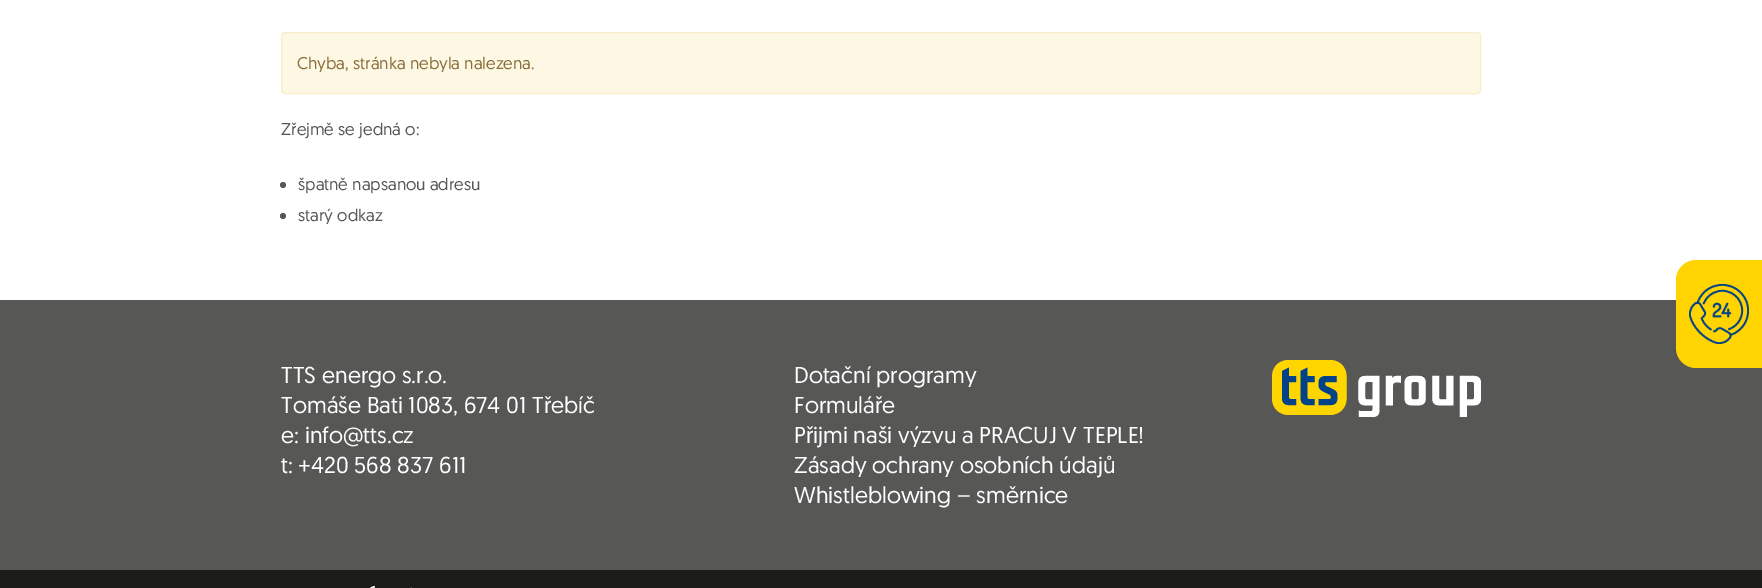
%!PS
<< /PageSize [1762 588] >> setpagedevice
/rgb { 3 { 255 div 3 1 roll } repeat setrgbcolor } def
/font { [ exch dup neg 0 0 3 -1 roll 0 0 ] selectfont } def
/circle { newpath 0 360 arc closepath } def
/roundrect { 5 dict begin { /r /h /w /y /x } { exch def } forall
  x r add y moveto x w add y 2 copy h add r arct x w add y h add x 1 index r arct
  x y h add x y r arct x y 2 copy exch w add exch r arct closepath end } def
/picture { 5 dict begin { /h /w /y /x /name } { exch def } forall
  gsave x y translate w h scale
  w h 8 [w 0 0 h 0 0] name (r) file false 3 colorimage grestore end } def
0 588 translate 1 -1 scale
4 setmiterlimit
255 255 255 rgb
0 0 1762 588 rectfill
252 248 227 rgb
281.5 32.5 1199 61 3.5 roundrect gsave fill grestore
250 235 204 rgb
stroke
87 87 86 rgb
283 185 3 circle fill
283 216 3 circle fill
0 300 1762 270 rectfill
255 212 0 rgb
1696 260 moveto 1762 260 lineto 1762 368 lineto 1696 368 lineto 1685 368 1676 359 1676 348 curveto 1676 280 lineto 1676 269 1685 260 1696 260 curveto closepath fill
(img/1.rgb) 1689 284 60 60 picture
(img/2.rgb) 1272 360 209 57 picture
28 28 27 rgb
0 570 1762 18 rectfill
(img/3.rgb) 370 586 42 2 picture
/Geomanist-Regular 17 font
138 109 59 rgb
297 69 moveto (Chyba, stránka nebyla nalezena.) show
87 87 86 rgb
[
  [(Zřejmě se jedná o:) 281 135]
  [(špatně napsanou adresu) 298 190]
  [(starý odkaz) 298 221]
] { aload pop moveto show } forall
/Geomanist-Regular 23 font
255 255 255 rgb
[
  [(TTS energo s.r.o.) 281 383]
  [(Tomáše Bati 1083, 674 01 Třebíč) 281 413]
  [(e: info@tts.cz) 281 443]
  [(t: +420 568 837 611) 281 473]
  [(Dotační programy) 794 383]
  [(Formuláře) 794 413]
  [(Přijmi naši výzvu a PRACUJ V TEPLE!) 794 443]
  [(Zásady ochrany osobních údajů) 794 473]
  [(Whistleblowing – směrnice) 794 503]
] { aload pop moveto show } forall
showpage
